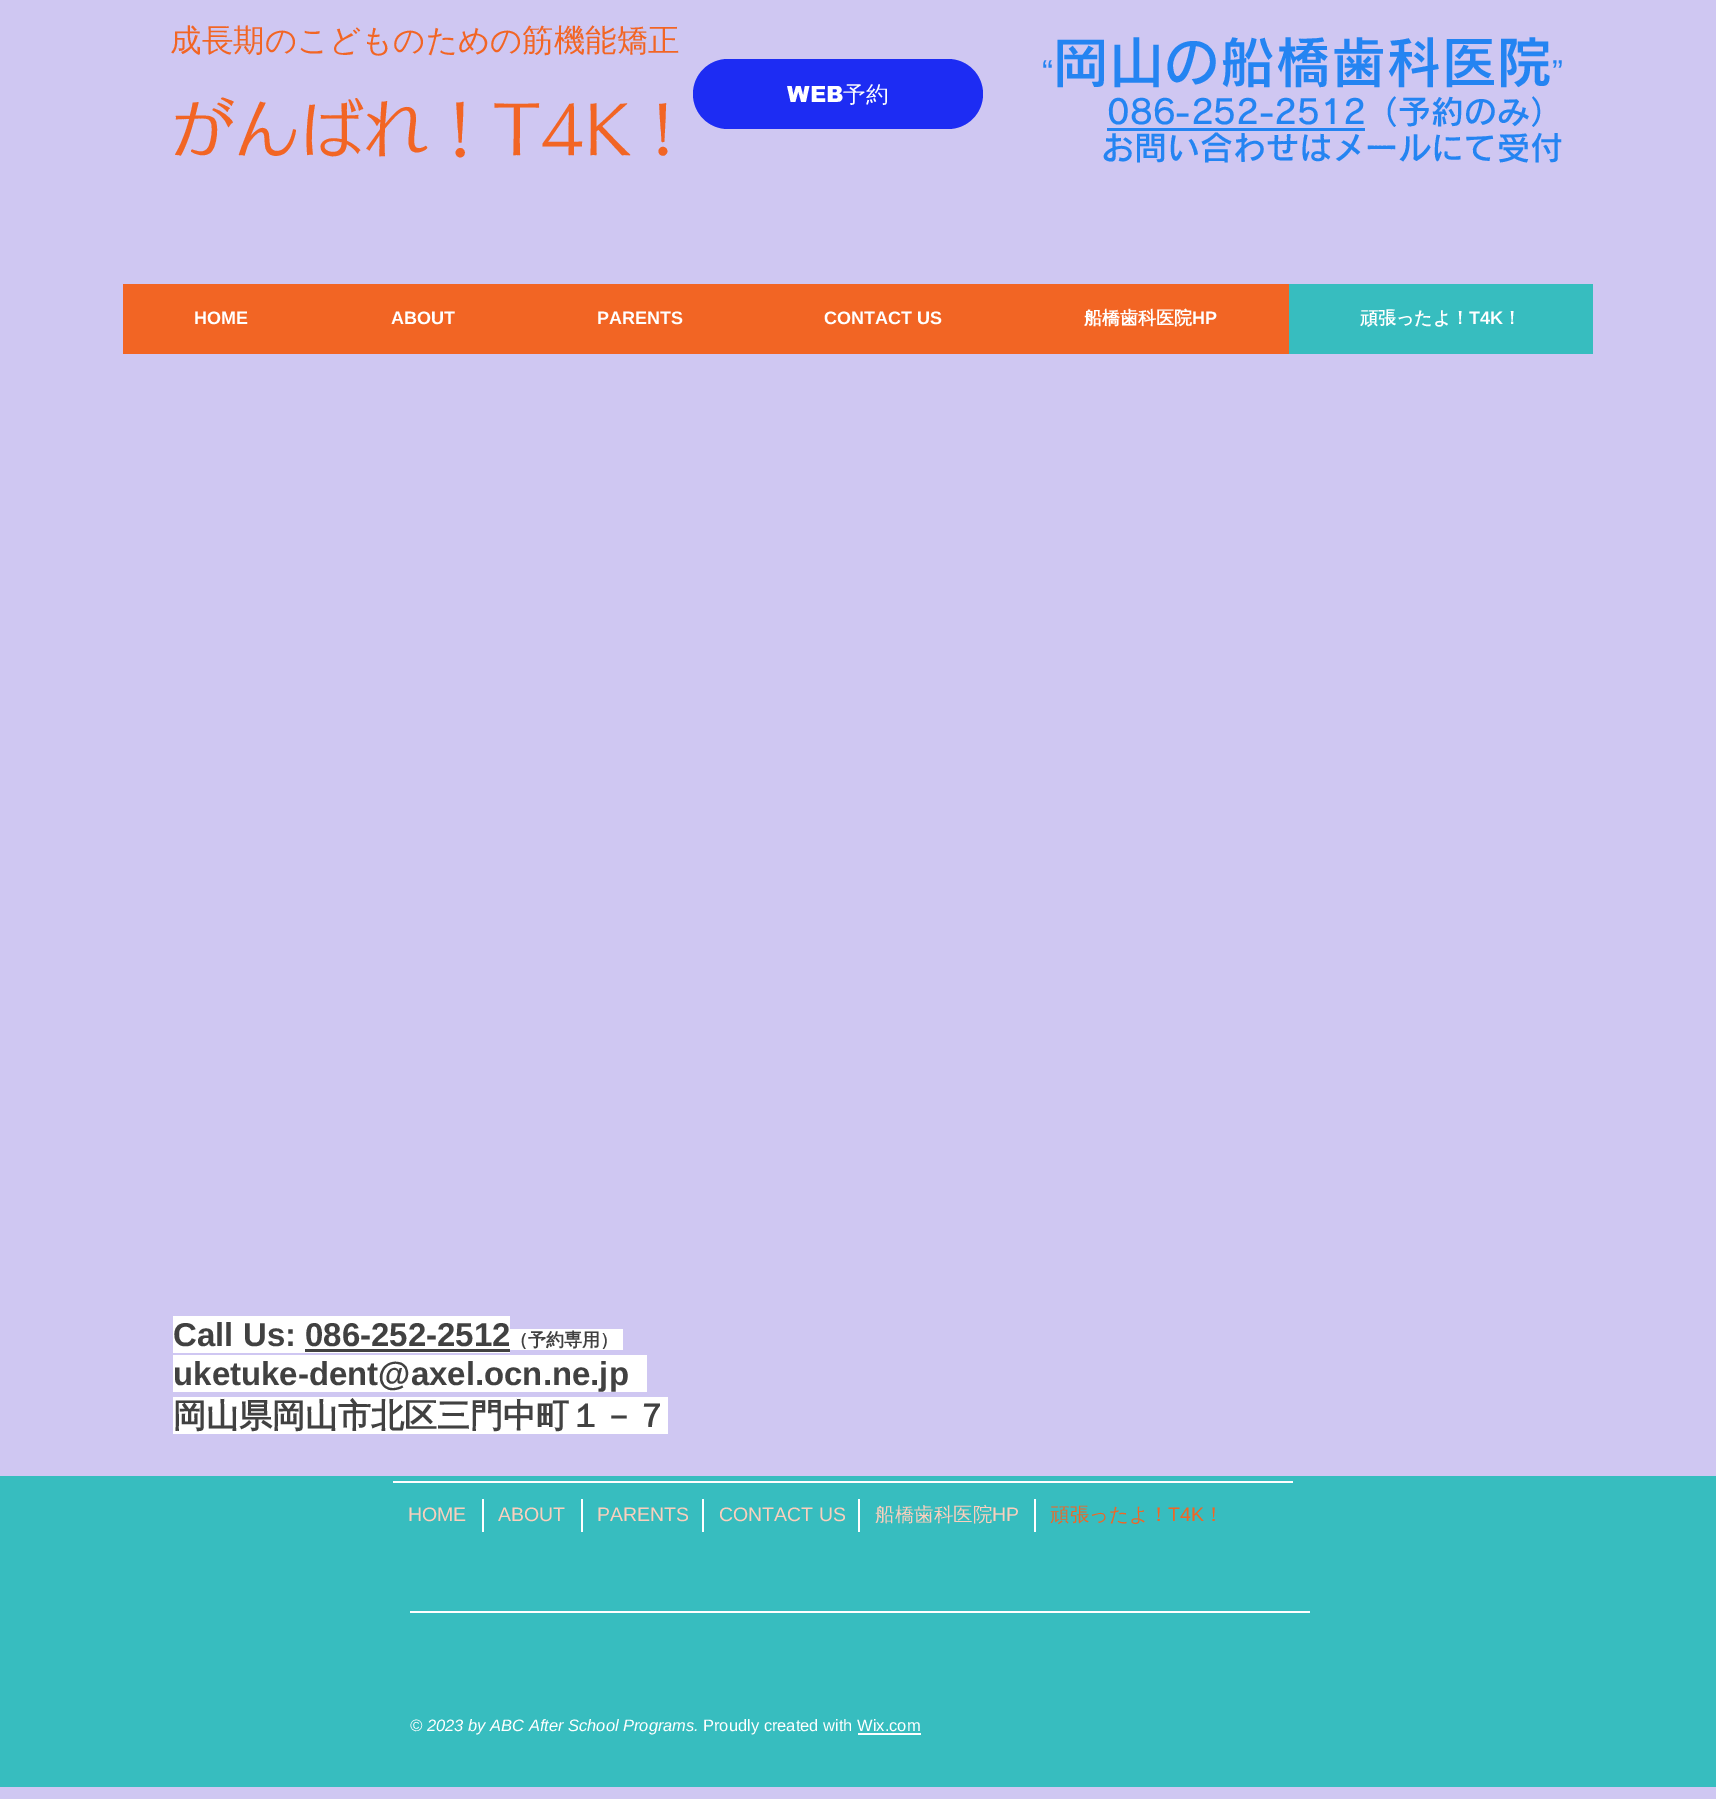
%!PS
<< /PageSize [1716 1799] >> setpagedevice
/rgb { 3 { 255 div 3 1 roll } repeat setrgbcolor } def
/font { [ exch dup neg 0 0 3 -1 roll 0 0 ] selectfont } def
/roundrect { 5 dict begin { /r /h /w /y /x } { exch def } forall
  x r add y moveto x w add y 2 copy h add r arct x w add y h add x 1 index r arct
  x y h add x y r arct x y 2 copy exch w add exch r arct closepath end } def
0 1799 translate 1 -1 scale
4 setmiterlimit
207 199 242 rgb
0 0 1716 1799 rectfill
29 44 243 rgb
693 59 290 70 35 roundrect fill
[
  [1107 128 258 3 36 132 242]
  [123 284 1166 70 242 101 36]
  [1289 284 304 70 55 189 191]
  [173 1316 337 37 255 255 255]
  [305 1349 205 3 65 65 65]
  [510 1329 113 21 255 255 255]
  [173 1355 474 37 255 255 255]
  [173 1397 495 37 255 255 255]
  [0 1476 1716 311 55 189 191]
  [393 1481 900 2 255 255 255]
  [482 1499 2 33 255 255 255]
  [581 1499 2 33 255 255 255]
  [702 1499 2 33 255 255 255]
  [858 1499 2 33 255 255 255]
  [1034 1499 2 33 255 255 255]
  [410 1611 900 2 255 255 255]
  [858 1733 63 2 255 255 255]
] { aload pop rgb rectfill } forall
/WenQuanYiZenHei-Medium 31.5 font
242 101 36 rgb
170 51 moveto (成長期のこどものための筋機能矯正) show
/arial-Black 22.5 font
255 255 255 rgb
787 102 moveto (WEB) show
/WenQuanYiZenHei-Medium 22.5 font
843 102 moveto (予約) show
/LiberationSans-Regular 33 font
36 132 242 rgb
1042 83 moveto (“) show
/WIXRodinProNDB-SemiBold 55.5 font
1053 83 moveto (岡山の船橋歯科医院) show
/LiberationSans-Regular 33 font
1552 83 moveto (”) show
/WIXRodinProNDB-SemiBold 33 font
1107 124 moveto (086-252-2512（予約のみ）) show
1101 160 moveto (お問い合わせはメールにて受付) show
/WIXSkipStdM-Medium 64.5 font
242 101 36 rgb
170 153 moveto (がんばれ！T4K !) show
/LiberationSans-Bold 18 font
255 255 255 rgb
[
  [(HOME) 194 324]
  [(ABOUT) 391 324]
  [(PARENTS) 597 324]
  [(CONTACT US) 824 324]
] { aload pop moveto show } forall
/WenQuanYiZenHei-Bold 18 font
1084 324 moveto (船橋歯科医院) show
/LiberationSans-Bold 18 font
1192 324 moveto (HP) show
/WenQuanYiZenHei-Bold 18 font
1360 324 moveto (頑張ったよ！) show
/LiberationSans-Bold 18 font
1469 324 moveto (T4K) show
/WenQuanYiZenHei-Bold 18 font
1503 324 moveto (！) show
/LiberationSans-Bold 33 font
65 65 65 rgb
173 1346 moveto (Call Us: 086-252-2512) show
/WenQuanYiZenHei-Bold 18 font
510 1346 moveto (（予約専用）) show
/LiberationSans-Bold 33 font
173 1385 moveto (uketuke-dent@axel.ocn.ne.jp) show
/WenQuanYiZenHei-Bold 33 font
173 1427 moveto (岡山県岡山市北区三門中町１－７) show
/LiberationSans-Regular 19.5 font
251 207 189 rgb
[
  [(HOME) 408 1521]
  [(ABOUT) 498 1521]
  [(PARENTS) 597 1521]
  [(CONTACT US) 719 1521]
] { aload pop moveto show } forall
/WenQuanYiZenHei-Medium 19.5 font
875 1521 moveto (船橋歯科医院) show
/LiberationSans-Regular 19.5 font
992 1521 moveto (HP) show
/WenQuanYiZenHei-Medium 19.5 font
242 101 36 rgb
1050 1521 moveto (頑張ったよ！) show
/LiberationSans-Regular 19.5 font
1168 1521 moveto (T4K) show
/WenQuanYiZenHei-Medium 19.5 font
1204 1521 moveto (！) show
/LiberationSans-Italic 16.5 font
255 255 255 rgb
410 1731 moveto (© 2023 by ABC After School Programs.) show
/LiberationSans-Regular 16.5 font
703 1731 moveto (Proudly created with Wix.com) show
showpage
